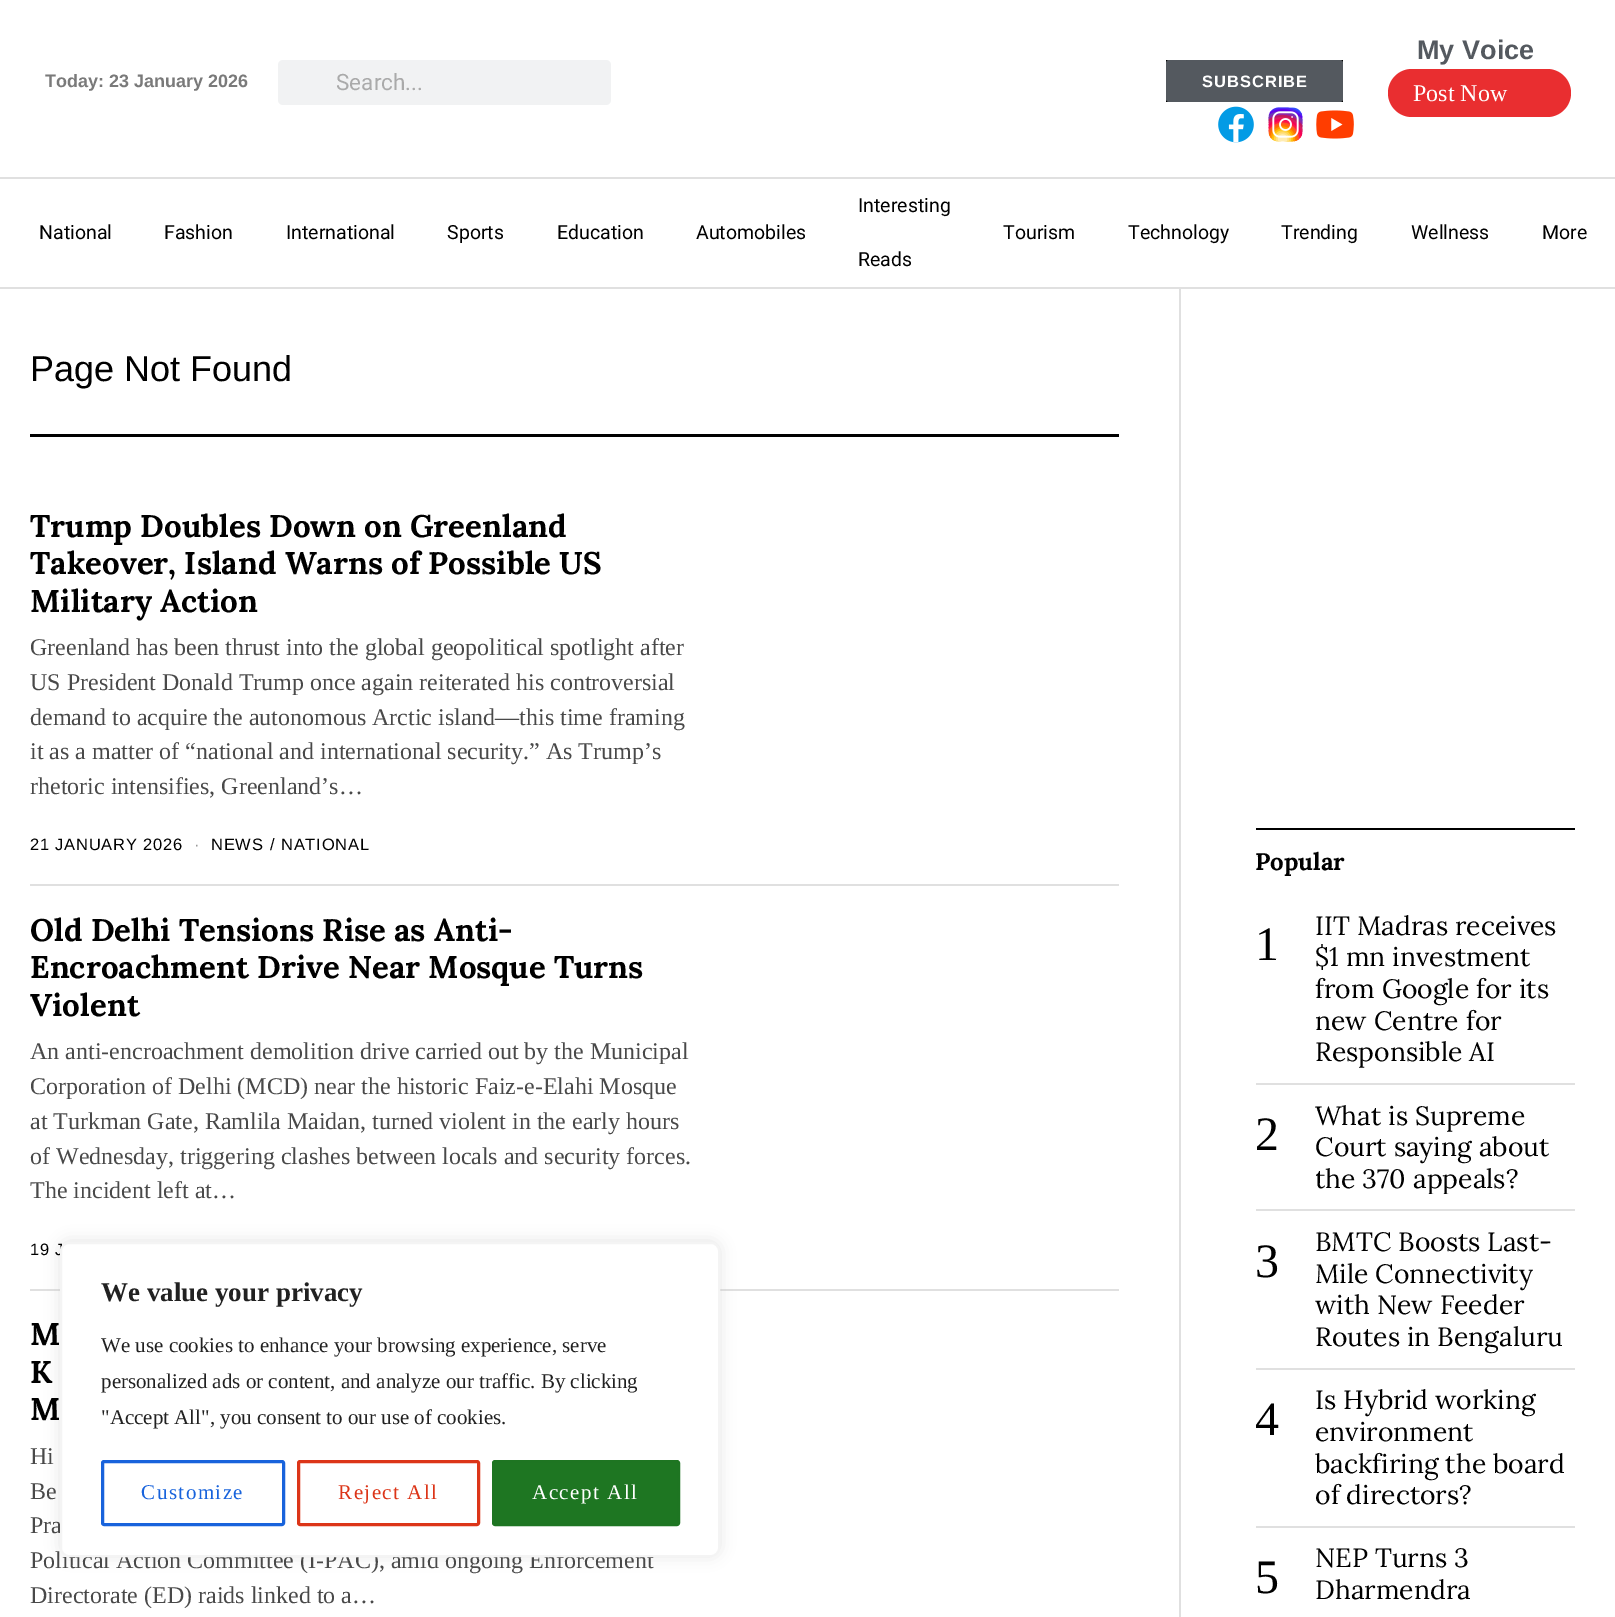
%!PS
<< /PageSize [1615 1617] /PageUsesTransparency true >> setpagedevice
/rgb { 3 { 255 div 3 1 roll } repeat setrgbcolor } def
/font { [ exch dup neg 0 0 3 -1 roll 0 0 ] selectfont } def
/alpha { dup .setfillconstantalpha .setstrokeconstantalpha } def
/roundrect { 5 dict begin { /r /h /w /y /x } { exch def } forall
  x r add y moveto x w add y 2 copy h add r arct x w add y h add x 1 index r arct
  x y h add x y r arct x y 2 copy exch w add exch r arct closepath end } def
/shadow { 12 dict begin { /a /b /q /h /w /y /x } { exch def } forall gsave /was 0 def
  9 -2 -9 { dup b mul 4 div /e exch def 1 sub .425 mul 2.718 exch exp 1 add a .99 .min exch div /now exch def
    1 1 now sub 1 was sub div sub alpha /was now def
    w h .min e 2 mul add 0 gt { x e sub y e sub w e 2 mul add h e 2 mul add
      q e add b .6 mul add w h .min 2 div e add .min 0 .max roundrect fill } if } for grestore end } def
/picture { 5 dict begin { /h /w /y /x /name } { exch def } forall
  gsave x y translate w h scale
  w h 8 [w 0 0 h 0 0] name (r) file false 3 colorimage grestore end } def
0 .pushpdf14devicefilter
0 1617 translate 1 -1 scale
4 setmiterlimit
255 255 255 rgb
0 0 1615 1617 rectfill
241 242 243 rgb
278 60 333 45 5 roundrect fill
2 1 1 rgb
1166 60 177 42 rectfill
84 89 95 rgb
1166 60 177 42 3 roundrect fill
(img/1.rgb) 1218 106 36 37 picture
(img/2.rgb) 1268 107 35 35 picture
(img/3.rgb) 1316 110 38 29 picture
233 46 48 rgb
1388 69 183 48 24 roundrect fill
[
  [0 177 1615 2 224 224 224]
  [1179 288 2 1329 224 224 224]
  [0 287 1615 2 224 224 224]
  [30 434 1089 3 0 0 0]
  [30 884 1089 2 224 224 224]
  [30 1289 1089 2 224 224 224]
  [1256 828 319 2 0 0 0]
  [1256 1083 319 2 224 224 224]
  [1256 1209 319 2 224 224 224]
  [1256 1368 319 2 224 224 224]
  [1256 1526 319 2 224 224 224]
] { aload pop rgb rectfill } forall
172 171 171 rgb
60 1241 660 315 9 7.5 0.3 shadow
/LiberationSans-Bold 18 font
122 122 122 rgb
45 87 moveto (Today: 23 January 2026) show
/Roboto-Regular 22.5 font
170 170 170 rgb
336 90 moveto (Search...) show
/LiberationSans-Bold 16.5 font
255 255 255 rgb
1202 87 moveto 1 0 (SUBSCRIBE) ashow
/LiberationSans-Bold 27 font
84 89 95 rgb
1417 59 moveto (My Voice) show
/LiberationSerif-Regular 24 font
255 255 255 rgb
1413 101 moveto (Post Now) show
/Roboto-Regular 19.5 font
0 0 0 rgb
[
  [(National) 39 239]
  [(Fashion) 164 239]
  [(International) 286 239]
  [(Sports) 447 239]
  [(Education) 557 239]
  [(Automobiles) 696 239]
  [(Interesting) 858 212]
  [(Reads) 858 266]
  [(Tourism) 1003 239]
  [(Technology) 1128 239]
  [(Trending) 1281 239]
  [(Wellness) 1411 239]
  [(More) 1542 239]
] { aload pop moveto show } forall
/LiberationSans-Regular 36 font
30 381 moveto (Page Not Found) show
/Lora-Bold 31.25 font
[
  [(Trump Doubles Down on Greenland) 30 537]
  [(Takeover, Island Warns of Possible US) 30 574]
  [(Military Action) 30 612]
] { aload pop moveto show } forall
/LiberationSerif-Regular 24 font
73 73 73 rgb
[
  [(Greenland has been thrust into the global geopolitical spotlight after) 30 655]
  [(US President Donald Trump once again reiterated his controversial) 30 690]
  [(demand to acquire the autonomous Arctic island—this time framing) 30 725]
  [(it as a matter of “national and international security.” As Trump’s) 30 759]
  [(rhetoric intensifies, Greenland’s…) 30 794]
] { aload pop moveto show } forall
/LiberationSans-Regular 16.5 font
0 0 0 rgb
30 850 moveto 0.75 0 (21 JANUARY 2026) ashow
153 153 153 rgb
194 850 moveto 0.75 0 (·) ashow
0 0 0 rgb
211 850 moveto 0.75 0 (NEWS) ashow
270 850 moveto 0.75 0 (/) ashow
281 850 moveto 0.75 0 (NATIONAL) ashow
/Lora-Bold 31.25 font
[
  [(Old Delhi Tensions Rise as Anti-) 30 941]
  [(Encroachment Drive Near Mosque Turns) 30 978]
  [(Violent) 30 1016]
] { aload pop moveto show } forall
/LiberationSerif-Regular 24 font
73 73 73 rgb
[
  [(An anti-encroachment demolition drive carried out by the Municipal) 30 1059]
  [(Corporation of Delhi \(MCD\) near the historic Faiz-e-Elahi Mosque) 30 1094]
  [(at Turkman Gate, Ramlila Maidan, turned violent in the early hours) 30 1129]
  [(of Wednesday, triggering clashes between locals and security forces.) 30 1164]
  [(The incident left at…) 30 1198]
] { aload pop moveto show } forall
/LiberationSans-Regular 16.5 font
0 0 0 rgb
30 1255 moveto 0.75 0 (19 J) ashow
/Lora-Bold 31.25 font
[
  [(M) 30 1345]
  [(K) 30 1383]
  [(M) 30 1420]
] { aload pop moveto show } forall
/LiberationSerif-Regular 24 font
73 73 73 rgb
[
  [(Hi) 30 1464]
  [(Be) 30 1499]
  [(Pra) 30 1533]
  [(Political Action Committee \(I-PAC\), amid ongoing Enforcement) 30 1568]
  [(Directorate \(ED\) raids linked to a…) 30 1603]
] { aload pop moveto show } forall
/Lora-Bold 24 font
0 0 0 rgb
1255 870 moveto (Popular) show
/LiberationSerif-Regular 48 font
1255 960 moveto (1) show
/Lora-Regular 26.5 font
[
  [(IIT Madras receives) 1315 935]
  [($1 mn investment) 1315 966]
  [(from Google for its) 1315 998]
  [(new Centre for) 1315 1030]
  [(Responsible AI) 1315 1061]
] { aload pop moveto show } forall
/LiberationSerif-Regular 48 font
1255 1150 moveto (2) show
/Lora-Regular 26.5 font
1315 1125 moveto (What is Supreme) show
1315 1156 moveto (Court saying about) show
gsave
1316 1100 259 94 rectclip
1315 1188 moveto (the 370 appeals?) show
grestore
/LiberationSerif-Regular 48 font
1255 1277 moveto (3) show
/Lora-Regular 26.5 font
[
  [(BMTC Boosts Last-) 1315 1251]
  [(Mile Connectivity) 1315 1283]
  [(with New Feeder) 1315 1314]
  [(Routes in Bengaluru) 1315 1346]
] { aload pop moveto show } forall
/LiberationSerif-Regular 48 font
1255 1435 moveto (4) show
/Lora-Regular 26.5 font
[
  [(Is Hybrid working) 1315 1409]
  [(environment) 1315 1441]
  [(backfiring the board) 1315 1473]
  [(of directors?) 1315 1504]
] { aload pop moveto show } forall
/LiberationSerif-Regular 48 font
1255 1593 moveto (5) show
/Lora-Regular 26.5 font
1315 1567 moveto (NEP Turns 3) show
1315 1599 moveto (Dharmendra) show
255 255 255 rgb
61 1243 658 313 8 roundrect gsave fill grestore
244 244 244 rgb
2 setlinewidth
stroke
/LiberationSerif-Bold 27 font
33 33 33 rgb
101 1301 moveto (We value your privacy) show
/LiberationSerif-Regular 21 font
[
  [(We use cookies to enhance your browsing experience, serve) 101 1352]
  [(personalized ads or content, and analyze our traffic. By clicking) 101 1388]
  [("Accept All", you consent to our use of cookies.) 101 1424]
] { aload pop moveto show } forall
24 99 220 rgb
3 setlinewidth
102.5 1461.5 181 63 1.5 roundrect stroke
141 1499 moveto 1.5 0 (Customize) ashow
220 53 24 rgb
298.5 1461.5 180 63 1.5 roundrect stroke
338 1499 moveto 1.5 0 (Reject All) ashow
30 118 34 rgb
493.5 1461.5 185 63 1.5 roundrect gsave fill grestore
30 117 34 rgb
stroke
255 255 255 rgb
532 1499 moveto 1.5 0 (Accept All) ashow
.poppdf14devicefilter showpage
